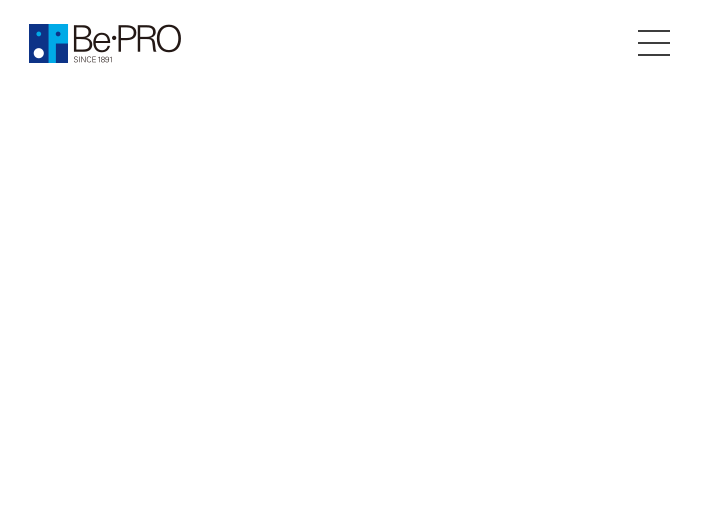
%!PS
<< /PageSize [719 523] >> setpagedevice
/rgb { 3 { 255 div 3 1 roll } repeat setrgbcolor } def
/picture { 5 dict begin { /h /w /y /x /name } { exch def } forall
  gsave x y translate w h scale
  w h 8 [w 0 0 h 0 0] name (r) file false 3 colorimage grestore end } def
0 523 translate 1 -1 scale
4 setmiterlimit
255 255 255 rgb
0 0 719 523 rectfill
(img/1.rgb) 29 24 152 39 picture
[
  [638 30 32 2 62 62 62]
  [638 42 32 2 62 62 62]
  [638 54 32 2 62 62 62]
] { aload pop rgb rectfill } forall
showpage
